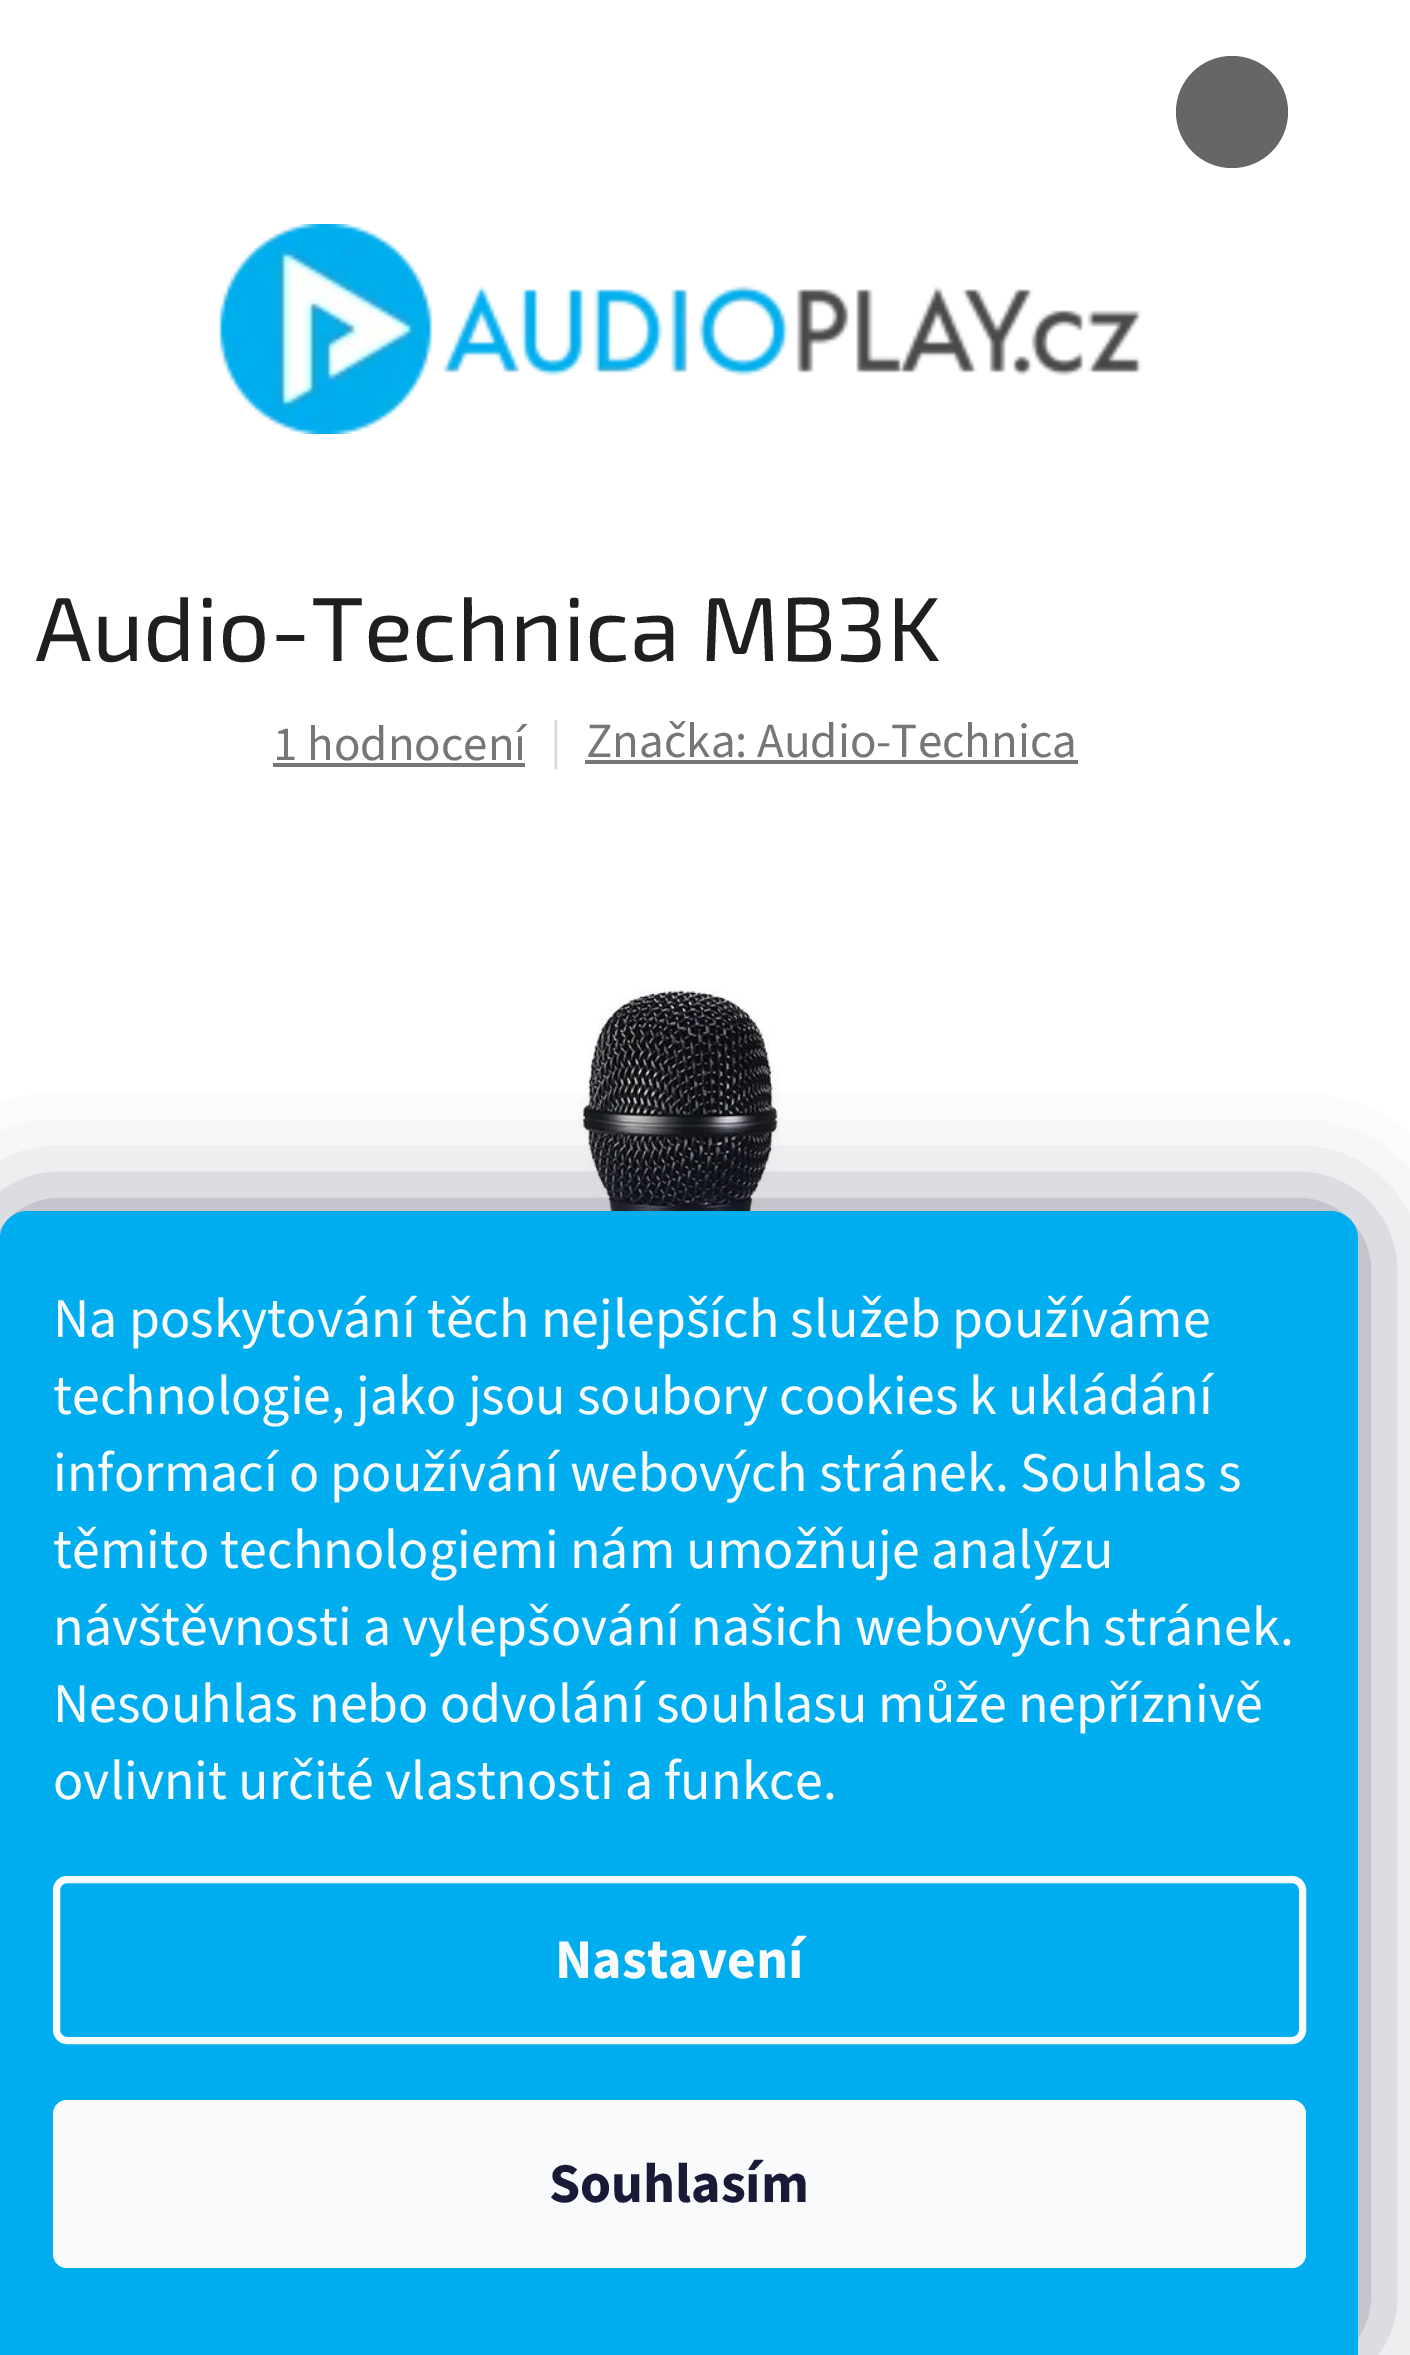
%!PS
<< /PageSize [1410 2355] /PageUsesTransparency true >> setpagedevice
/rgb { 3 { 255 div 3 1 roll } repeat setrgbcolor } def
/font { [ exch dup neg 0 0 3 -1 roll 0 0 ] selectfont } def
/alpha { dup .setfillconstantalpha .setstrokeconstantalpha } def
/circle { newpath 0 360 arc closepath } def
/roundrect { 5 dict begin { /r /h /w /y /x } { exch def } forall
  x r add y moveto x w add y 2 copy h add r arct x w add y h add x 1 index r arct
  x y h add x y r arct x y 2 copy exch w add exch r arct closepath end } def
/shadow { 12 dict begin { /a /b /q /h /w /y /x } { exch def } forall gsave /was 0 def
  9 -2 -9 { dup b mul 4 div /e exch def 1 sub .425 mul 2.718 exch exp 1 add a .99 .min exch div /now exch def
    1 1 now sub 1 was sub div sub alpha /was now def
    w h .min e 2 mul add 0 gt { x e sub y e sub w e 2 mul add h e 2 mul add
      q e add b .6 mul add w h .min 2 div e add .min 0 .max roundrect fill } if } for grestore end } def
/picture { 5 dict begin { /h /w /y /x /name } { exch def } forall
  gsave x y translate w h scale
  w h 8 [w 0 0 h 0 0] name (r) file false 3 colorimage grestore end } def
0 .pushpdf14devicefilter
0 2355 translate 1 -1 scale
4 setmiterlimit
255 255 255 rgb
0 0 1410 2355 rectfill
102 102 102 rgb
1232 112 56 circle fill
(img/1.rgb) 219 224 923 210 picture
118 118 118 rgb
273 763 252 4 rectfill
585 760 493 4 rectfill
(img/2.rgb) 578 988 202 223 picture
27 25 57 rgb
0 1211 1358 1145 28 52.5 0.5 shadow
0 174 239 rgb
28 1211 moveto 1330 1211 lineto 1345.5 1211 1358 1223.5 1358 1239 curveto 1358 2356 lineto 0 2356 lineto 0 1239 lineto 0 1223.5 12.5 1211 28 1211 curveto closepath fill
248 250 251 rgb
7 setlinewidth
56.5 1879.5 1246 161 10.5 roundrect stroke
53 2100 1253 168 14 roundrect fill
/Exo2-Regular 91 font
31 31 31 rgb
35 661 moveto (Audio-Technica MB3K) show
/SourceSans3-Regular 49 font
118 118 118 rgb
273 760 moveto (1 hodnocení) show
218 218 218 rgb
550 757 moveto (|) show
118 118 118 rgb
586 757 moveto (Značka: Audio-Technica) show
/SourceSans3-Regular 56 font
248 250 251 rgb
[
  [(Na poskytování těch nejlepších služeb používáme) 53 1337]
  [(technologie, jako jsou soubory cookies k ukládání) 53 1414]
  [(informací o používání webových stránek. Souhlas s) 53 1491]
  [(těmito technologiemi nám umožňuje analýzu) 53 1568]
  [(návštěvnosti a vylepšování našich webových stránek.) 53 1645]
  [(Nesouhlas nebo odvolání souhlasu může nepříznivě) 53 1722]
  [(ovlivnit určité vlastnosti a funkce.) 53 1799]
] { aload pop moveto show } forall
/SourceSans3-Bold 56 font
555 1978 moveto (Nastavení) show
26 25 55 rgb
549 2202 moveto (Souhlasím) show
.poppdf14devicefilter showpage
